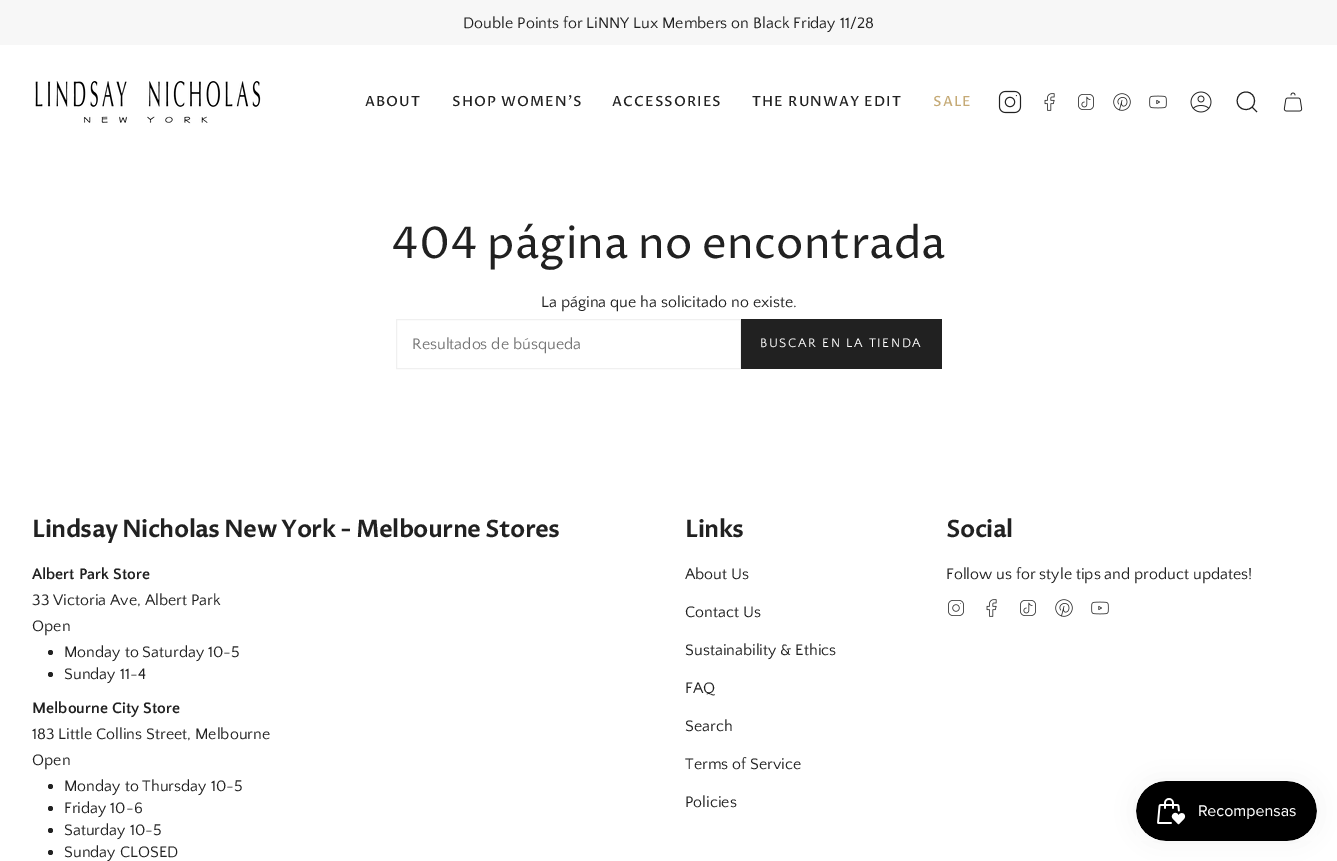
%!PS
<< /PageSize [1337 861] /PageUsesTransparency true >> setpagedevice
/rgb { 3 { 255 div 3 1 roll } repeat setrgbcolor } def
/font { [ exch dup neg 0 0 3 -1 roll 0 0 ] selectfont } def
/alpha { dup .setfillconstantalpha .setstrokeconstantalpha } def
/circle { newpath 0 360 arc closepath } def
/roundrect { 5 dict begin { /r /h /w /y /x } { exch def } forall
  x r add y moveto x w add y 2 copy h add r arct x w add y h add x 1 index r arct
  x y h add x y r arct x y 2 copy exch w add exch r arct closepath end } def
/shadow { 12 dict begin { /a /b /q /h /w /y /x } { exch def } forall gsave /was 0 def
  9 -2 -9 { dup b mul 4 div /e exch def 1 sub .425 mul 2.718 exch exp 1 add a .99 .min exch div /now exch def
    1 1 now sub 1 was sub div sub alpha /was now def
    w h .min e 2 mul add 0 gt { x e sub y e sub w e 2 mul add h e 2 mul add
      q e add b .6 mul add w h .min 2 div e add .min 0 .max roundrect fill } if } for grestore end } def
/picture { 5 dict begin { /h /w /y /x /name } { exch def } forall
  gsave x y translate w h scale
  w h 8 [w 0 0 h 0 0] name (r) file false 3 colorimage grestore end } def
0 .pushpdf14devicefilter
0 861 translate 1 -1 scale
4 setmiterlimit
255 255 255 rgb
0 0 1337 861 rectfill
247 247 247 rgb
0 0 1337 45 rectfill
(img/1.rgb) 35 81 226 43 picture
(img/2.rgb) 998 90 24 24 picture
(img/3.rgb) 1044 93 11 18 picture
(img/4.rgb) 1078 94 16 16 picture
(img/5.rgb) 1113 93 18 18 picture
(img/6.rgb) 1149 95 18 14 picture
(img/7.rgb) 1190 91 22 22 picture
33 33 33 rgb
1246 92 moveto 1257.5 92 1257.5 110 1245.5 109.5 curveto 1234 109 1234.5 92 1246 92 curveto closepath 1252 107 moveto 1257 112 lineto stroke
(img/8.rgb) 1283 92 20 20 picture
240 240 240 rgb
396.5 319.5 344 49 rectstroke
33 33 33 rgb
741 319 201 50 rectfill
50.5 652.5 2.5 circle fill
50.5 674.5 2.5 circle fill
50.5 786.5 2.5 circle fill
50.5 808.5 2.5 circle fill
50.5 830.5 2.5 circle fill
50.5 852.5 2.5 circle fill
(img/9.rgb) 948 600 16 16 picture
(img/10.rgb) 986 599 11 18 picture
(img/11.rgb) 1020 600 16 16 picture
(img/12.rgb) 1055 599 18 18 picture
(img/13.rgb) 1091 601 18 14 picture
0 0 0 rgb
1136 781 181 60 30 12.5 0.05 shadow
(img/14.rgb) 1136 781 181 60 picture
/QuattrocentoSans-Regular 16 font
33 33 33 rgb
463 28 moveto (Double Points for LiNNY Lux Members on Black Friday 11/28) show
/ProzaLibre-Medium 14 font
365 106 moveto 1.1 0 (ABOUT) ashow
452 106 moveto 1.1 0 (SHOP WOMEN'S) ashow
612 106 moveto 1.1 0 (ACCESSORIES) ashow
752 106 moveto 1.1 0 (THE RUNWAY EDIT) ashow
197 170 118 rgb
933 106 moveto 1.1 0 (SALE) ashow
/ProzaLibre-Regular 43.75 font
33 33 33 rgb
391 258 moveto (404 página no encontrada) show
/QuattrocentoSans-Regular 16 font
541 307 moveto (La página que ha solicitado no existe.) show
117 117 117 rgb
412 349 moveto (Resultados de búsqueda) show
/QuattrocentoSans-Regular 13 font
255 255 255 rgb
760 347 moveto 1.6 0 (BUSCAR EN LA TIENDA) ashow
/ProzaLibre-Bold 23 font
33 33 33 rgb
32 537 moveto (Lindsay Nicholas New York - Melbourne Stores) show
/QuattrocentoSans-Bold 16 font
32 579 moveto (Albert Park Store) show
/QuattrocentoSans-Regular 16 font
[
  [(33 Victoria Ave, Albert Park) 32 605]
  [(Open) 32 631]
  [(Monday to Saturday 10-5) 64 657]
  [(Sunday 11-4) 64 679]
] { aload pop moveto show } forall
/QuattrocentoSans-Bold 16 font
32 713 moveto (Melbourne City Store) show
/QuattrocentoSans-Regular 16 font
[
  [(183 Little Collins Street, Melbourne) 32 739]
  [(Open) 32 765]
  [(Monday to Thursday 10-5) 64 791]
  [(Friday 10-6) 64 813]
  [(Saturday 10-5) 64 835]
  [(Sunday CLOSED) 64 857]
] { aload pop moveto show } forall
/ProzaLibre-Bold 23 font
685 537 moveto (Links) show
/QuattrocentoSans-Regular 16 font
[
  [(About Us) 685 579]
  [(Contact Us) 685 617]
  [(Sustainability & Ethics) 685 655]
  [(FAQ) 685 693]
  [(Search) 685 731]
  [(Terms of Service) 685 769]
  [(Policies) 685 807]
] { aload pop moveto show } forall
/ProzaLibre-Bold 23 font
946 537 moveto (Social) show
/QuattrocentoSans-Regular 16 font
946 579 moveto (Follow us for style tips and product updates!) show
.poppdf14devicefilter showpage
